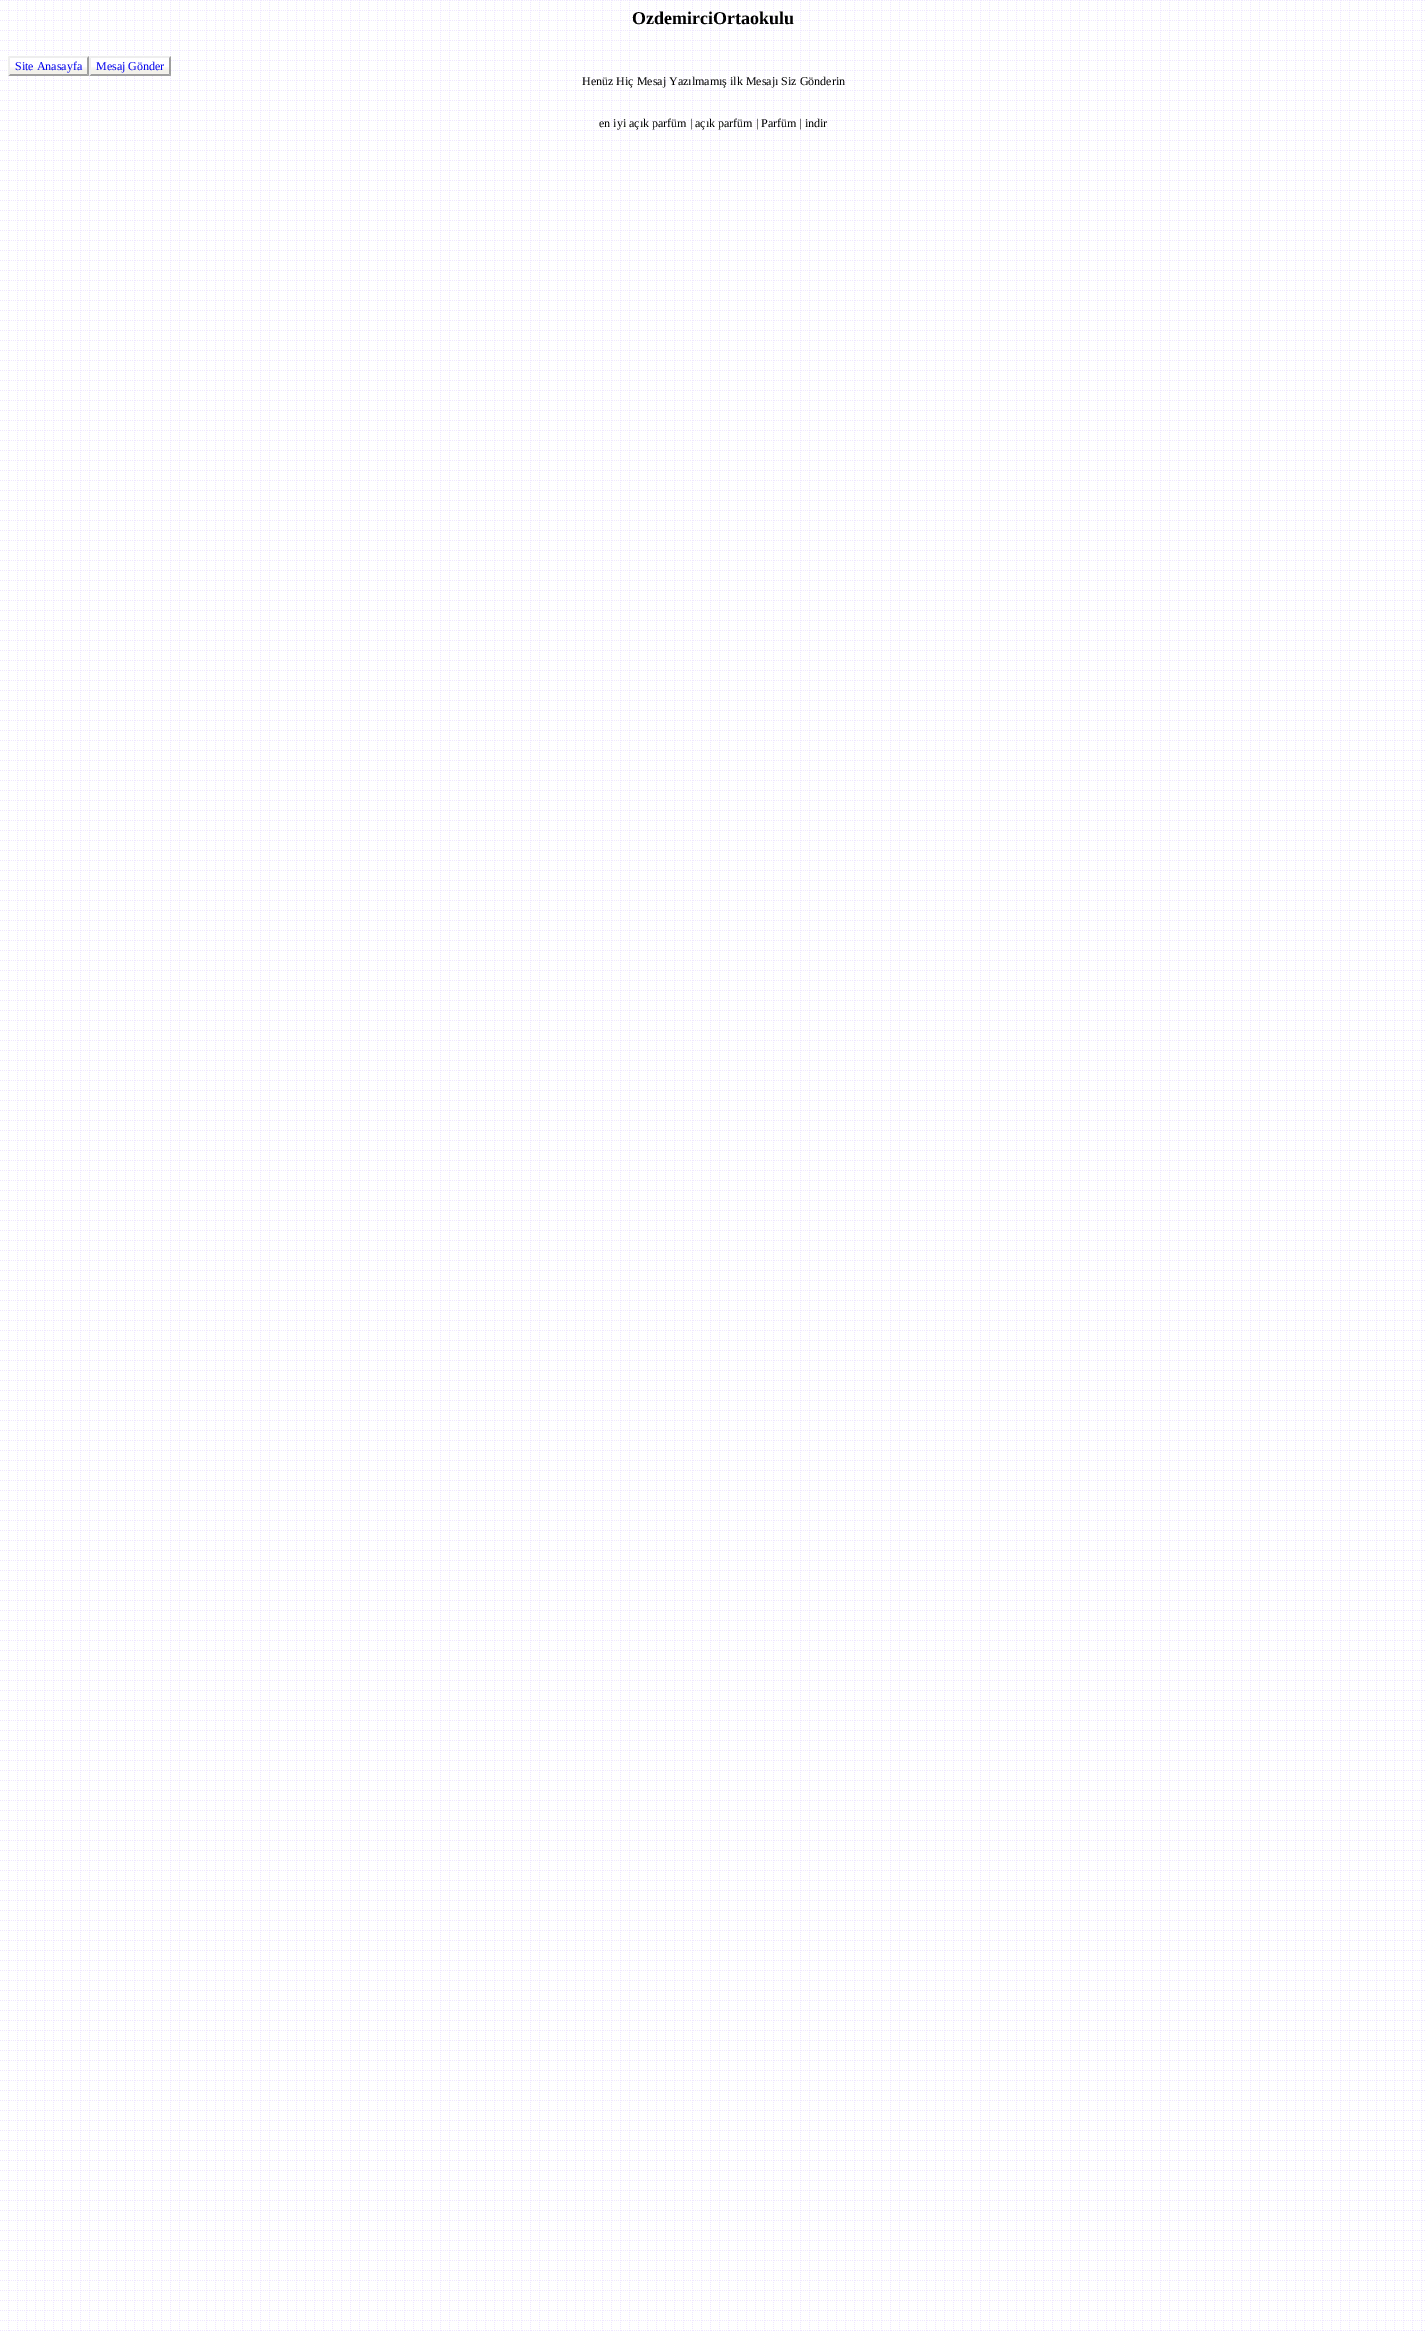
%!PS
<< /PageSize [1426 2331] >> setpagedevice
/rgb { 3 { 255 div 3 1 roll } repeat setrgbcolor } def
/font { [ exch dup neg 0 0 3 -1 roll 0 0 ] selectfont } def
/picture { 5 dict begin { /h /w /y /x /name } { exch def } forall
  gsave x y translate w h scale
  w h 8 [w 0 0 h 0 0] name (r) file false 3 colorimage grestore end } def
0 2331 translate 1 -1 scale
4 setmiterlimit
255 255 255 rgb
0 0 1426 2331 rectfill
(img/1.rgb) 0 0 1425 2331 picture
(img/2.rgb) 8 56 81 20 picture
(img/3.rgb) 89 56 82 20 picture
238 238 238 rgb
8 56 moveto 89 56 lineto 87 58 lineto 10 58 lineto closepath fill
159 159 159 rgb
89 56 moveto 89 76 lineto 87 74 lineto 87 58 lineto closepath fill
89 76 moveto 8 76 lineto 10 74 lineto 87 74 lineto closepath fill
238 238 238 rgb
8 76 moveto 8 56 lineto 10 58 lineto 10 74 lineto closepath fill
89 56 moveto 171 56 lineto 169 58 lineto 91 58 lineto closepath fill
159 159 159 rgb
171 56 moveto 171 76 lineto 169 74 lineto 169 58 lineto closepath fill
171 76 moveto 89 76 lineto 91 74 lineto 169 74 lineto closepath fill
238 238 238 rgb
89 76 moveto 89 56 lineto 91 58 lineto 91 74 lineto closepath fill
/LiberationSerif-Bold 18 font
0 0 0 rgb
632 24 moveto (OzdemirciOrtaokulu) show
/LiberationSerif-Regular 12 font
0 0 238 rgb
15 70 moveto (Site Anasayfa) show
96 70 moveto (Mesaj Gönder) show
0 0 0 rgb
582 85 moveto (Henüz Hiç Mesaj Yazılmamış ilk Mesajı Siz Gönderin) show
599 127 moveto (en iyi açık parfüm | açık parfüm | Parfüm | indir) show
showpage
